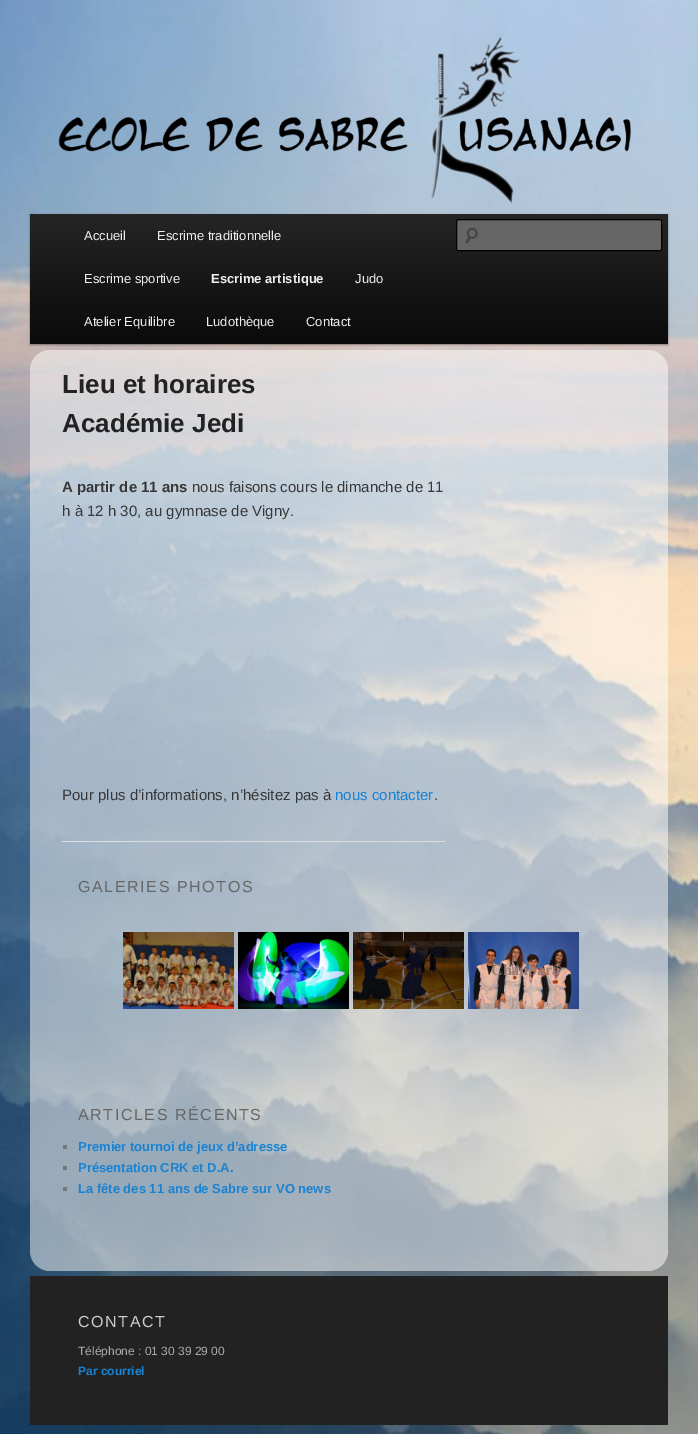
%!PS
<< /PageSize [698 1434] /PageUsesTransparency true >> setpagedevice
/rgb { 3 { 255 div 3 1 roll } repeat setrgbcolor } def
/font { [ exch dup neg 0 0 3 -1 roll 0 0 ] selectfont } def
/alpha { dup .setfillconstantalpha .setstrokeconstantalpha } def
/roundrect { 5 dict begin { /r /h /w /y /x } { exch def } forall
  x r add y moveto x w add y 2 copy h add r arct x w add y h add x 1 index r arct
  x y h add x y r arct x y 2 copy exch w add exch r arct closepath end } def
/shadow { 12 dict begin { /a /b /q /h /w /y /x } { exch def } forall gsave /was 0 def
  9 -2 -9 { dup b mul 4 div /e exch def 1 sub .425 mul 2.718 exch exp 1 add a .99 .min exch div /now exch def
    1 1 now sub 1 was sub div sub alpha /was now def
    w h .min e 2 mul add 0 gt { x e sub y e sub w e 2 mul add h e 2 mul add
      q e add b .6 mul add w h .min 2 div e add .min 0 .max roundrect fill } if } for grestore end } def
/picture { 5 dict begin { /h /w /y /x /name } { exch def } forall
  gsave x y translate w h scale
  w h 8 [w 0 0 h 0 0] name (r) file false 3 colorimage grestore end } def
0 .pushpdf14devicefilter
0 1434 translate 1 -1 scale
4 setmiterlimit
255 255 255 rgb
0 0 698 1434 rectfill
(img/1.rgb) 0 0 698 1434 picture
(img/2.rgb) 58 36 573 168 picture
0 0 0 rgb
30 215 638 130 0 1 0.4 shadow
gsave 30 214 moveto 668 214 lineto 668 344 lineto 30 344 lineto closepath clip newpath
<< /ShadingType 2 /ColorSpace /DeviceRGB /Coords [349 214 349 344] /Extend [true true] /Function << /FunctionType 2 /Domain [0 1] /C0 [0.145 0.145 0.145] /C1 [0.039 0.039 0.039] /N 1 >> >> shfill grestore
102 102 102 rgb
456 219 206 32 2 roundrect fill
(img/3.rgb) 465 227 13 17 picture
92 92 92 rgb
458 221 moveto 661 221 lineto 661 222 lineto 661 221 661 220 660 220 curveto 458 220 lineto 457 220 lineto 457 222 lineto 457 221 457 221 458 221 curveto closepath fill
0 0 0 rgb
456.5 219.5 205 31 1.5 roundrect stroke
0.5 alpha
255 255 255 rgb
30 350 638 921 20 roundrect fill
1 alpha
221 221 221 rgb
62 841 383 1 rectfill
(img/4.rgb) 123 932 111 77 picture
(img/5.rgb) 238 932 111 77 picture
(img/6.rgb) 353 932 111 77 picture
(img/7.rgb) 468 932 111 77 picture
[
  [63 1145 4 4 119 119 119]
  [63 1166 4 4 119 119 119]
  [63 1187 4 4 119 119 119]
  [30 1276 638 149 34 34 34]
] { aload pop rgb rectfill } forall
/LiberationSans-Regular 13 font
238 238 238 rgb
[
  [(Accueil) 84 240]
  [(Escrime traditionnelle) 157 240]
  [(Escrime sportive) 84 283]
] { aload pop moveto show } forall
/LiberationSans-Bold 13 font
211 283 moveto (Escrime artistique) show
/LiberationSans-Regular 13 font
[
  [(Judo) 355 283]
  [(Atelier Equilibre) 84 326]
  [(Ludothèque) 206 326]
  [(Contact) 306 326]
] { aload pop moveto show } forall
/LiberationSans-Bold 26 font
34 34 34 rgb
62 393 moveto (Lieu et horaires) show
62 432 moveto (Académie Jedi) show
/LiberationSans-Bold 15 font
55 55 55 rgb
62 492 moveto (A partir de 11 ans) show
/LiberationSans-Regular 15 font
[
  [(nous faisons cours le dimanche de 11) 192 492]
  [(h à 12 h 30, au gymnase de Vigny.) 62 516]
  [(Pour plus d’informations, n’hésitez pas à) 62 800]
] { aload pop moveto show } forall
25 130 209 rgb
335 800 moveto (nous contacter) show
55 55 55 rgb
434 800 moveto (.) show
/LiberationSans-Regular 16 font
102 102 102 rgb
78 892 moveto 1.6 0 (GALERIES PHOTOS) ashow
/LiberationSerif-Bold 16 font
52 31 14 rgb
413 975 moveto (u) show
159 124 116 rgb
491 975 moveto (Chanbara) show
/LiberationSans-Regular 16 font
102 102 102 rgb
78 1120 moveto 1.6 0 (ARTICLES RÉCENTS) ashow
/LiberationSans-Bold 13 font
25 130 209 rgb
[
  [(Premier tournoi de jeux d’adresse) 78 1151]
  [(Présentation CRK et D.A.) 78 1172]
  [(La fête des 11 ans de Sabre sur VO news) 78 1193]
] { aload pop moveto show } forall
/LiberationSans-Regular 16 font
204 204 204 rgb
78 1327 moveto 1.6 0 (CONTACT) ashow
/LiberationSans-Regular 12 font
170 170 170 rgb
78 1355 moveto (Téléphone : 01 30 39 29 00) show
/LiberationSans-Bold 12 font
25 130 209 rgb
78 1375 moveto (Par courriel) show
.poppdf14devicefilter showpage
